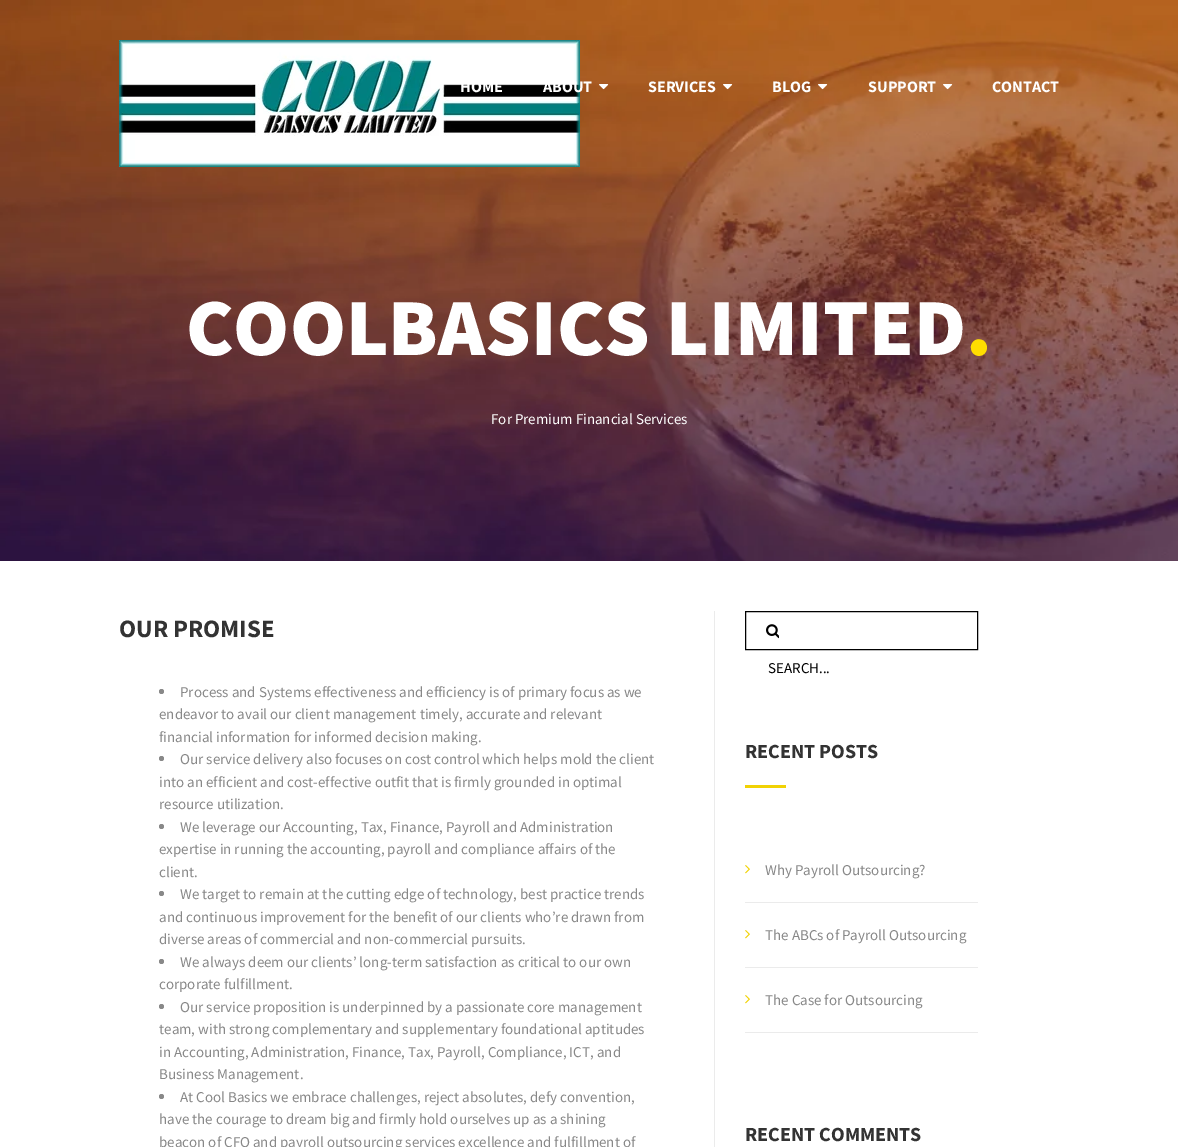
%!PS
<< /PageSize [1178 1147] >> setpagedevice
/rgb { 3 { 255 div 3 1 roll } repeat setrgbcolor } def
/font { [ exch dup neg 0 0 3 -1 roll 0 0 ] selectfont } def
/circle { newpath 0 360 arc closepath } def
/picture { 5 dict begin { /h /w /y /x /name } { exch def } forall
  gsave x y translate w h scale
  w h 8 [w 0 0 h 0 0] name (r) file false 3 colorimage grestore end } def
0 1147 translate 1 -1 scale
4 setmiterlimit
255 255 255 rgb
0 0 1178 1147 rectfill
(img/1.rgb) 0 0 1178 561 picture
(img/2.rgb) 119 40 461 127 picture
(img/3.rgb) 599 84 10 6 picture
(img/4.rgb) 723 84 10 6 picture
(img/5.rgb) 818 84 10 6 picture
(img/6.rgb) 943 84 10 6 picture
136 136 136 rgb
161.5 691.5 2.5 circle fill
161.5 758.5 2.5 circle fill
161.5 826.5 2.5 circle fill
161.5 893.5 2.5 circle fill
161.5 961.5 2.5 circle fill
161.5 1006.5 2.5 circle fill
161.5 1096.5 2.5 circle fill
235 235 235 rgb
714 611 1 536 rectfill
0 0 0 rgb
745.5 611.5 232 38 rectstroke
(img/7.rgb) 766 624 13 15 picture
241 210 4 rgb
745 785 41 3 rectfill
235 235 235 rgb
745 902 233 1 rectfill
(img/8.rgb) 745 865 5 9 picture
745 967 233 1 rectfill
(img/8.rgb) 745 930 5 9 picture
745 1032 233 1 rectfill
(img/8.rgb) 745 995 5 9 picture
/SourceSansPro-Bold 16 font
255 255 255 rgb
[
  [(HOME) 460 92]
  [(ABOUT) 543 92]
  [(SERVICES) 648 92]
  [(BLOG) 772 92]
  [(SUPPORT) 868 92]
  [(CONTACT) 992 92]
] { aload pop moveto show } forall
/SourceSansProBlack-Black 81 font
186 355 moveto (COOLBASICS LIMITED) show
255 222 0 rgb
966 355 moveto (.) show
/SourceSansPro-Regular 15 font
255 255 255 rgb
491 424 moveto (For Premium Financial Services) show
/SourceSansPro-Bold 25 font
51 51 51 rgb
119 637 moveto (OUR PROMISE) show
/SourceSansPro-Regular 15 font
136 136 136 rgb
[
  [(Process and Systems effectiveness and efficiency is of primary focus as we) 180 697]
  [(endeavor to avail our client management timely, accurate and relevant) 159 719]
  [(financial information for informed decision making.) 159 742]
  [(Our service delivery also focuses on cost control which helps mold the client) 180 764]
  [(into an efficient and cost-effective outfit that is firmly grounded in optimal) 159 787]
  [(resource utilization.) 159 809]
  [(We leverage our Accounting, Tax, Finance, Payroll and Administration) 180 832]
  [(expertise in running the accounting, payroll and compliance affairs of the) 159 854]
  [(client.) 159 877]
  [(We target to remain at the cutting edge of technology, best practice trends) 180 899]
  [(and continuous improvement for the benefit of our clients who’re drawn from) 159 922]
  [(diverse areas of commercial and non-commercial pursuits.) 159 944]
  [(We always deem our clients’ long-term satisfaction as critical to our own) 180 967]
  [(corporate fulfillment.) 159 989]
  [(Our service proposition is underpinned by a passionate core management) 180 1012]
  [(team, with strong complementary and supplementary foundational aptitudes) 159 1034]
  [(in Accounting, Administration, Finance, Tax, Payroll, Compliance, ICT, and) 159 1057]
  [(Business Management.) 159 1079]
  [(At Cool Basics we embrace challenges, reject absolutes, defy convention,) 180 1102]
  [(have the courage to dream big and firmly hold ourselves up as a shining) 159 1124]
  [(beacon of CFO and payroll outsourcing services excellence and fulfillment of) 159 1147]
] { aload pop moveto show } forall
0 0 0 rgb
768 673 moveto (SEARCH...) show
/SourceSansPro-Bold 20 font
51 51 51 rgb
745 758 moveto (RECENT POSTS) show
/SourceSansPro-Regular 15 font
136 136 136 rgb
[
  [(Why Payroll Outsourcing?) 765 875]
  [(The ABCs of Payroll Outsourcing) 765 940]
  [(The Case for Outsourcing) 765 1005]
] { aload pop moveto show } forall
/SourceSansPro-Bold 20 font
51 51 51 rgb
745 1141 moveto (RECENT COMMENTS) show
showpage
